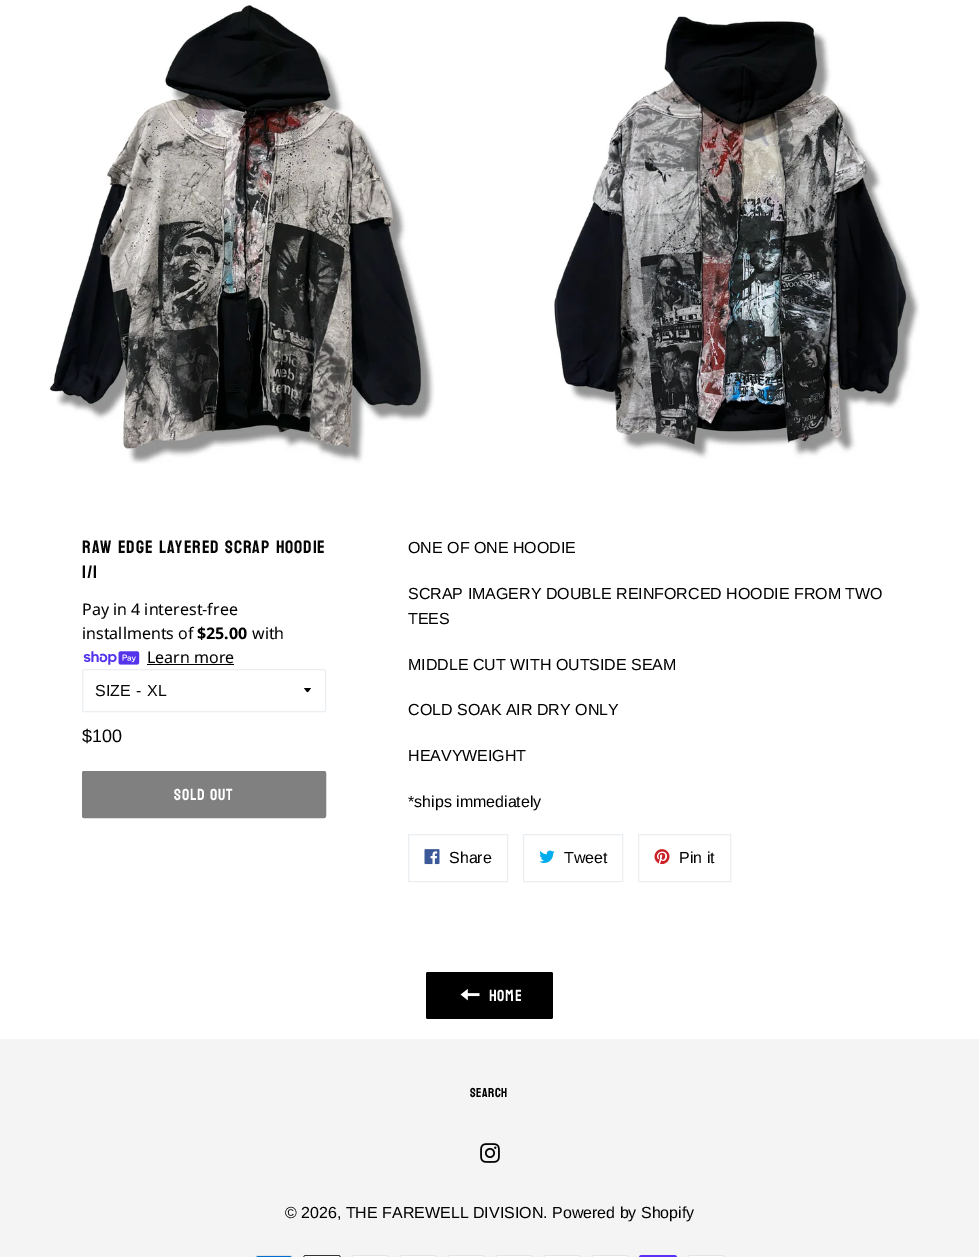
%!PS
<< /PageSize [979 1257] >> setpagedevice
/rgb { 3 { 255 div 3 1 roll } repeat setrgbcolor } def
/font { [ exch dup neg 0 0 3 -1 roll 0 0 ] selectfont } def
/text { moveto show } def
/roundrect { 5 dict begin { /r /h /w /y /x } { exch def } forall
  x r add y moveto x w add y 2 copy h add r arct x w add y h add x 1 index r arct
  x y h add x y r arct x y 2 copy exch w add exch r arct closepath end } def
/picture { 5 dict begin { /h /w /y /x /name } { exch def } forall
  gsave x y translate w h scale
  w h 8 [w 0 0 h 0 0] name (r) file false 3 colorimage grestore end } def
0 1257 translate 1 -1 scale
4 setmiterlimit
255 255 255 rgb
0 0 979 1257 rectfill
(img_01.rgb) 49 5 386 459 picture
(img_02.rgb) 553 16 367 443 picture
(img_03.rgb) 83 651 57 14 picture
0 0 0 rgb
147 664 87 1 rectfill
236 239 241 rgb
82.5 669.5 243 42 1.5 roundrect stroke
0 0 0 rgb
304 688 moveto 4.5 5.5 2.5 5.5 7 0 rcurveto closepath fill
128 128 128 rgb
83 772 242 45 1 roundrect gsave fill grestore
2 setlinewidth
stroke
236 239 241 rgb
1 setlinewidth
408.5 834.5 99 47 rectstroke
(img_04.rgb) 424 849 16 16 picture
523.5 834.5 99 47 rectstroke
(img_05.rgb) 539 850 16 13 picture
638.5 834.5 92 47 rectstroke
(img_06.rgb) 654 849 16 16 picture
0 0 0 rgb
426 972 127 47 2 roundrect fill
(img_07.rgb) 460 988 20 13 picture
244 244 244 rgb
0 1039 979 218 rectfill
(img_08.rgb) 480 1143 20 20 picture
(img_09.rgb) 255 1255 38 2 picture
(img_10.rgb) 303 1255 38 2 picture
(img_11.rgb) 351 1255 38 2 picture
(img_11.rgb) 399 1255 38 2 picture
(img_11.rgb) 447 1255 38 2 picture
(img_11.rgb) 495 1255 38 2 picture
(img_11.rgb) 543 1255 38 2 picture
(img_11.rgb) 591 1255 38 2 picture
(img_12.rgb) 639 1255 38 2 picture
(img_11.rgb) 687 1255 38 2 picture
/Bayon-Regular 18 font
7 7 7 rgb
82 553 moveto 0.9 0 (RAW EDGE LAYERED SCRAP HOODIE) ashow
82 578 moveto 0.9 0 (1/1) ashow
/NotoSans-Regular 16 font
0 0 0 rgb
(Pay in 4 interest-free) 82 615 text
(installments of) 82 639 text
/NotoSans-Bold 16 font
($25.00) 197 639 text
/NotoSans-Regular 16 font
(with) 252 639 text
(Learn more) 147 663 text
/LiberationSans-Regular 16 font
7 7 7 rgb
(SIZE) 95 696 text
(-) 136 696 text
(XL) 147 696 text
/LiberationSans-Regular 18 font
0 0 0 rgb
($100) 82 742 text
/Bayon-Regular 16 font
255 255 255 rgb
174 800 moveto 0.75 0 (SOLD OUT) ashow
/LiberationSans-Regular 16 font
0 0 0 rgb
(ONE OF ONE HOODIE) 408 553 text
(SCRAP IMAGERY DOUBLE REINFORCED HOODIE FROM TWO) 408 599 text
(TEES) 408 624 text
(MIDDLE CUT WITH OUTSIDE SEAM) 408 670 text
(COLD SOAK AIR DRY ONLY) 408 715 text
(HEAVYWEIGHT) 408 761 text
(*ships immediately) 408 807 text
(Share) 449 863 text
(Tweet) 564 863 text
(Pin it) 679 863 text
/Bayon-Regular 16 font
255 255 255 rgb
489 1001 moveto 0.75 0 (HOME) ashow
/Bayon-Regular 13 font
0 0 0 rgb
470 1097 moveto 0.5 0 (SEARCH) ashow
/LiberationSans-Regular 16 font
(© 2026, THE FAREWELL DIVISION. Powered by Shopify) 285 1218 text
showpage
